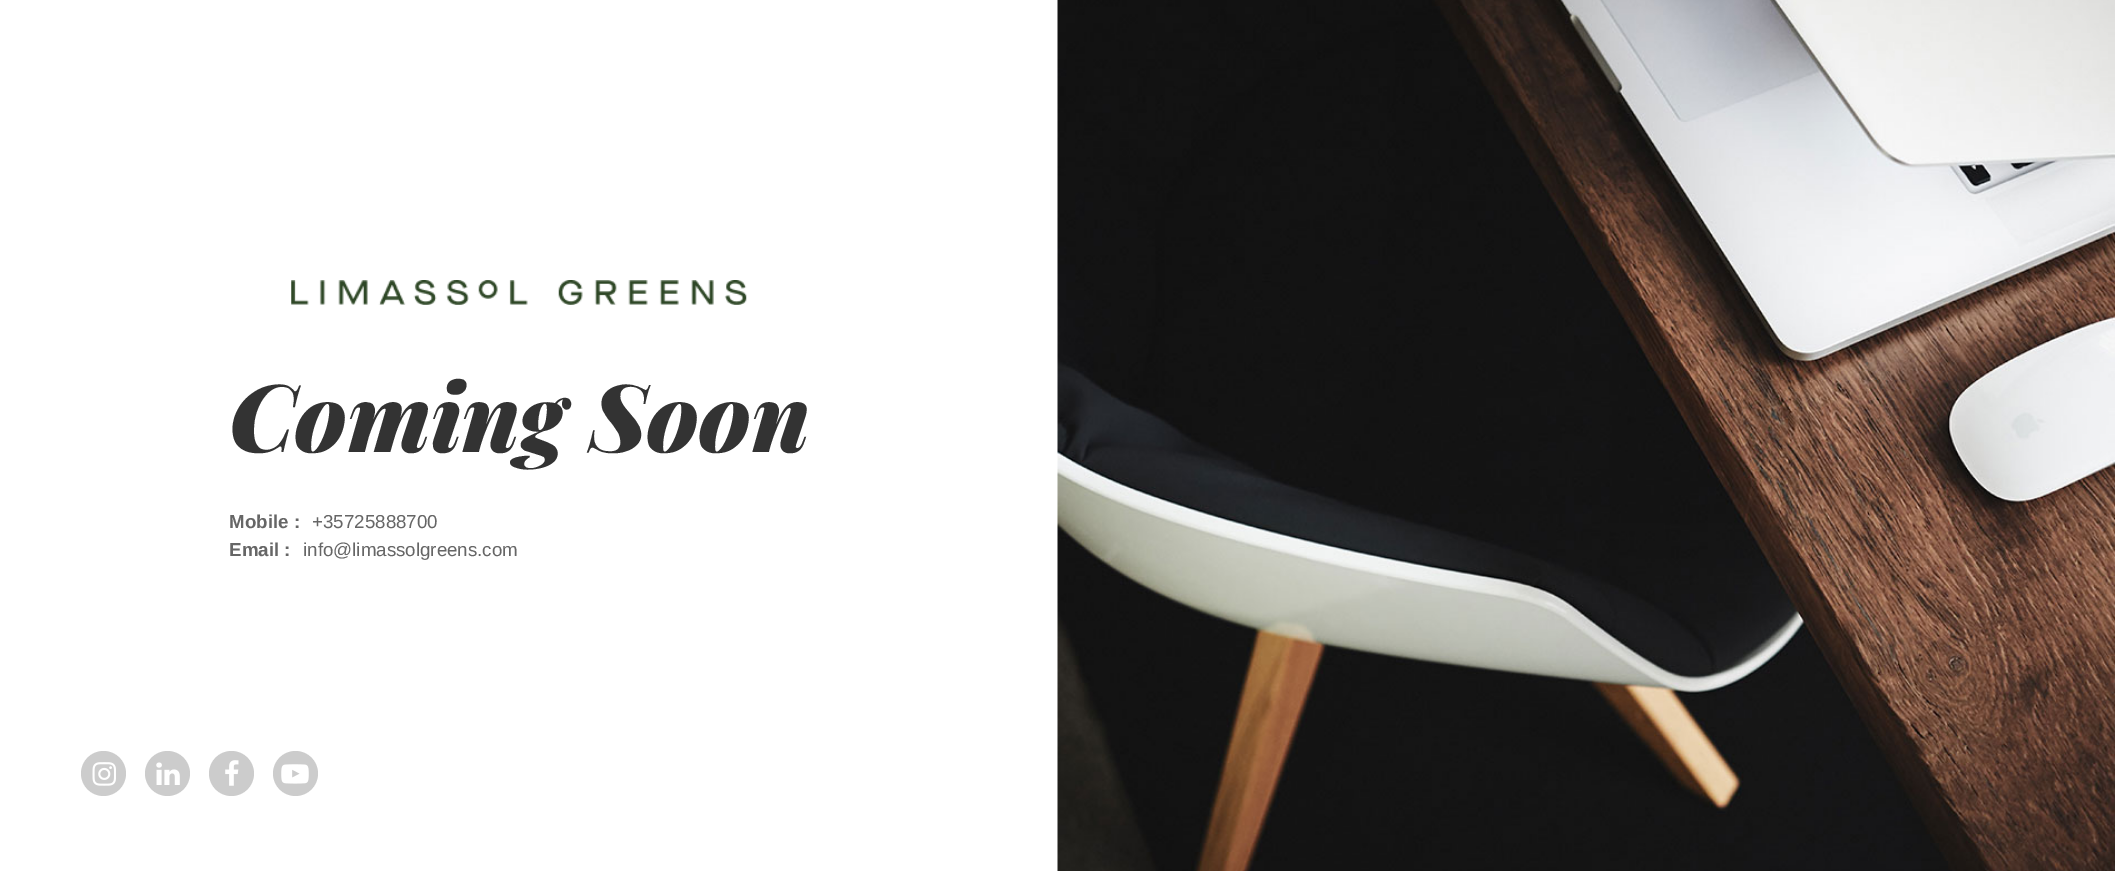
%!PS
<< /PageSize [2115 871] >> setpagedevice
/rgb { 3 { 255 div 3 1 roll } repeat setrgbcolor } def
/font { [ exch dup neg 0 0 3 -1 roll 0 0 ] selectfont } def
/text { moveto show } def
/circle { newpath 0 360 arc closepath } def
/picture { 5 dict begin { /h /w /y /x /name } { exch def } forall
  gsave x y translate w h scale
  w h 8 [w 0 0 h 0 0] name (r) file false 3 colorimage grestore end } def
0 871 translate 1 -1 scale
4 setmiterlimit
255 255 255 rgb
0 0 2115 871 rectfill
(img_01.rgb) 291 280 456 25 picture
204 204 204 rgb
103.5 773.5 22.5 circle fill
(img_02.rgb) 92 762 24 24 picture
167.5 773.5 22.5 circle fill
(img_03.rgb) 156 762 24 23 picture
231.5 773.5 22.5 circle fill
(img_04.rgb) 225 760 14 26 picture
295.5 773.5 22.5 circle fill
(img_05.rgb) 281 764 28 20 picture
(img_06.rgb) 1057 0 1058 871 picture
/PlayfairDisplay-BlackItalic 93.75 font
51 51 51 rgb
(Coming Soon) 229 452 text
/LiberationSans-Bold 18.75 font
102 102 102 rgb
(Mobile :) 229 528 text
/LiberationSans-Regular 18.75 font
(+35725888700) 312 528 text
/LiberationSans-Bold 18.75 font
(Email :) 229 556 text
/LiberationSans-Regular 18.75 font
(info@limassolgreens.com) 303 556 text
showpage
